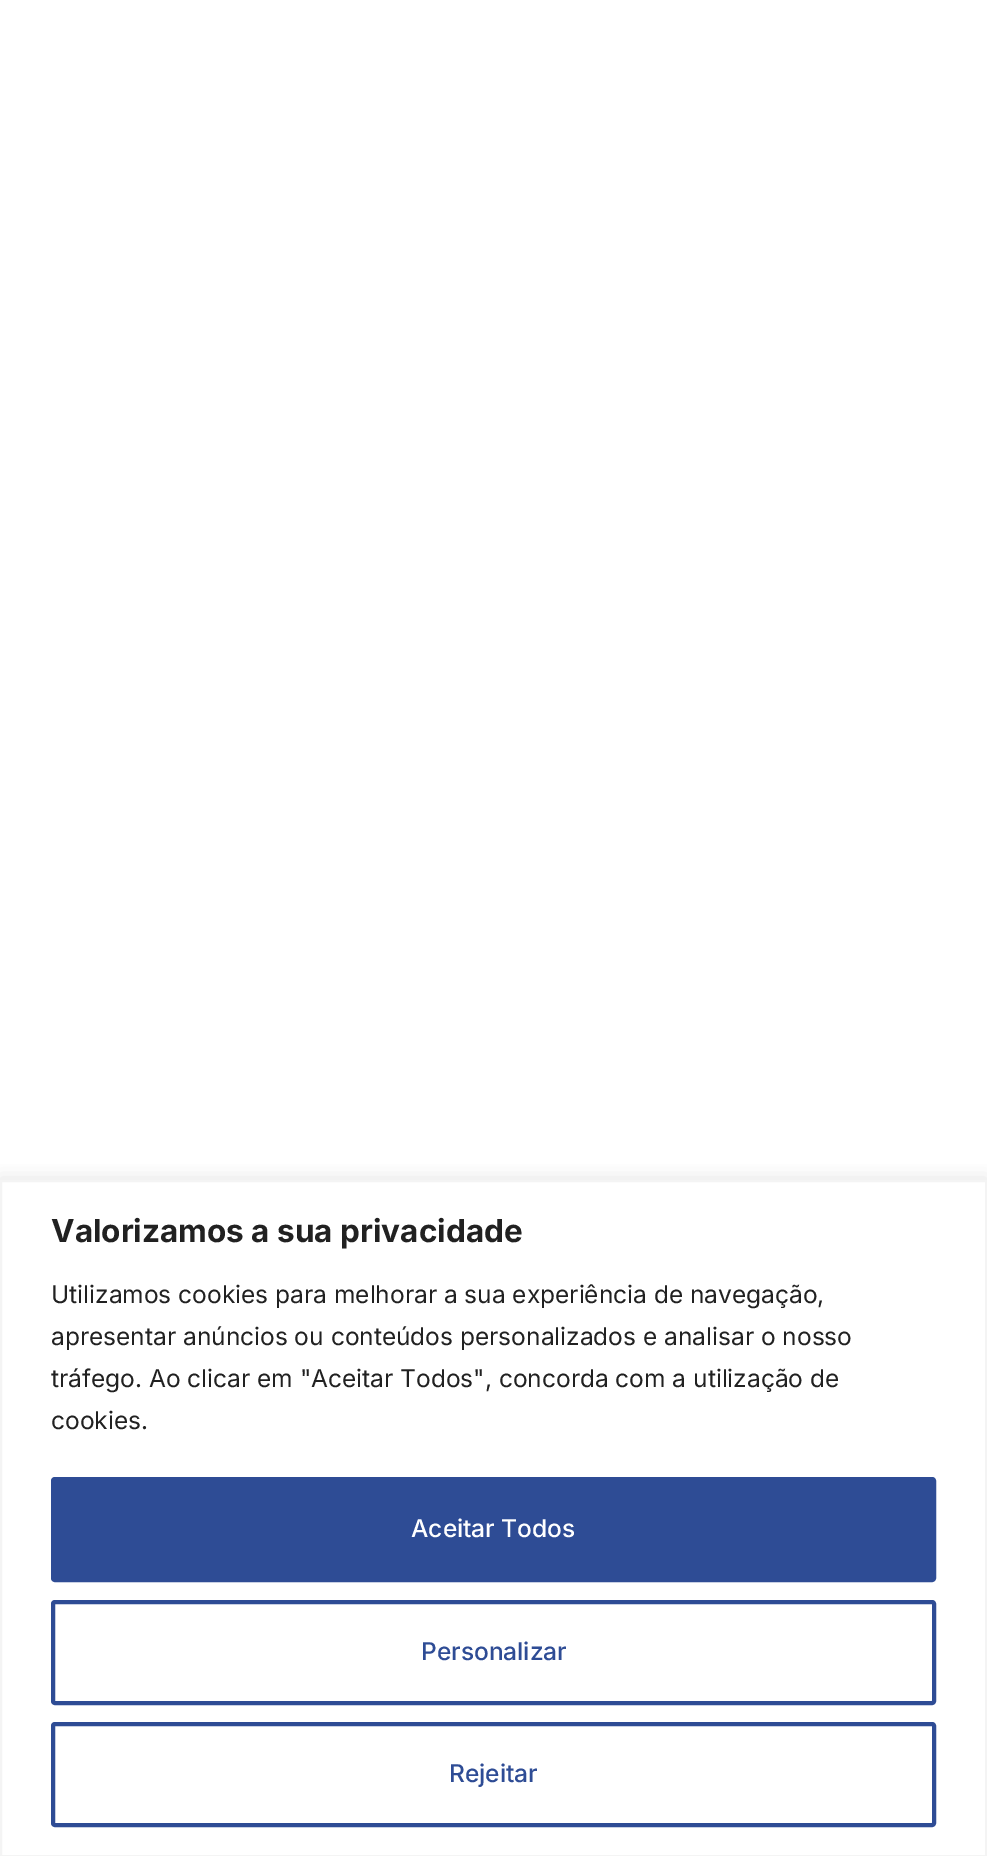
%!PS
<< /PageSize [987 1856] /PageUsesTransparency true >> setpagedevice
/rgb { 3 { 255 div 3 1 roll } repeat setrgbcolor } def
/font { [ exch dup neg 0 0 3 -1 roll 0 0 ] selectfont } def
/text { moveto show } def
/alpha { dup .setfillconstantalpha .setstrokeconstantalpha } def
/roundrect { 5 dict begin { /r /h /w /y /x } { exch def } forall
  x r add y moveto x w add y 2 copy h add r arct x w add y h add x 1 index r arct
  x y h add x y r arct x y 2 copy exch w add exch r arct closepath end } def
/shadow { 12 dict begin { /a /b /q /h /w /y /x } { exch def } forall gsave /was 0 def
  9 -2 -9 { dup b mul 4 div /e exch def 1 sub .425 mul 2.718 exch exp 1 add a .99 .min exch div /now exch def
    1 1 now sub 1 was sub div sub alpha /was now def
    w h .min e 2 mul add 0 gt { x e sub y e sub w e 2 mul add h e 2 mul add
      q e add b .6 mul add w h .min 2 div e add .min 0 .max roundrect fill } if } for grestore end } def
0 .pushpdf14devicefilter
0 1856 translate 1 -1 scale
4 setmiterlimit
255 255 255 rgb
0 0 987 1856 rectfill
gsave
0 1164 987 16 rectclip
172 171 171 rgb
0 1178 987 677 0 9 0.3 shadow
grestore
244 244 244 rgb
2 setlinewidth
1 1181 985 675 rectstroke
46 76 149 rgb
53 1479 881 101 2 roundrect gsave fill grestore
4 setlinewidth
stroke
53 1602 881 101 2 roundrect stroke
53 1724 881 101 2 roundrect stroke
/Inter-Bold 31.5 font
33 33 33 rgb
(Valorizamos a sua privacidade) 51 1242 text
/Inter-Regular 24.5 font
(Utilizamos cookies para melhorar a sua experiência de navegação,) 51 1303 text
(apresentar anúncios ou conteúdos personalizados e analisar o nosso) 51 1345 text
(tráfego. Ao clicar em "Aceitar Todos", concorda com a utilização de) 51 1387 text
(cookies.) 51 1429 text
/Inter-Medium 24.5 font
255 255 255 rgb
(Aceitar Todos) 411 1537 text
46 76 149 rgb
(Personalizar) 421 1660 text
(Rejeitar) 449 1782 text
.poppdf14devicefilter showpage
